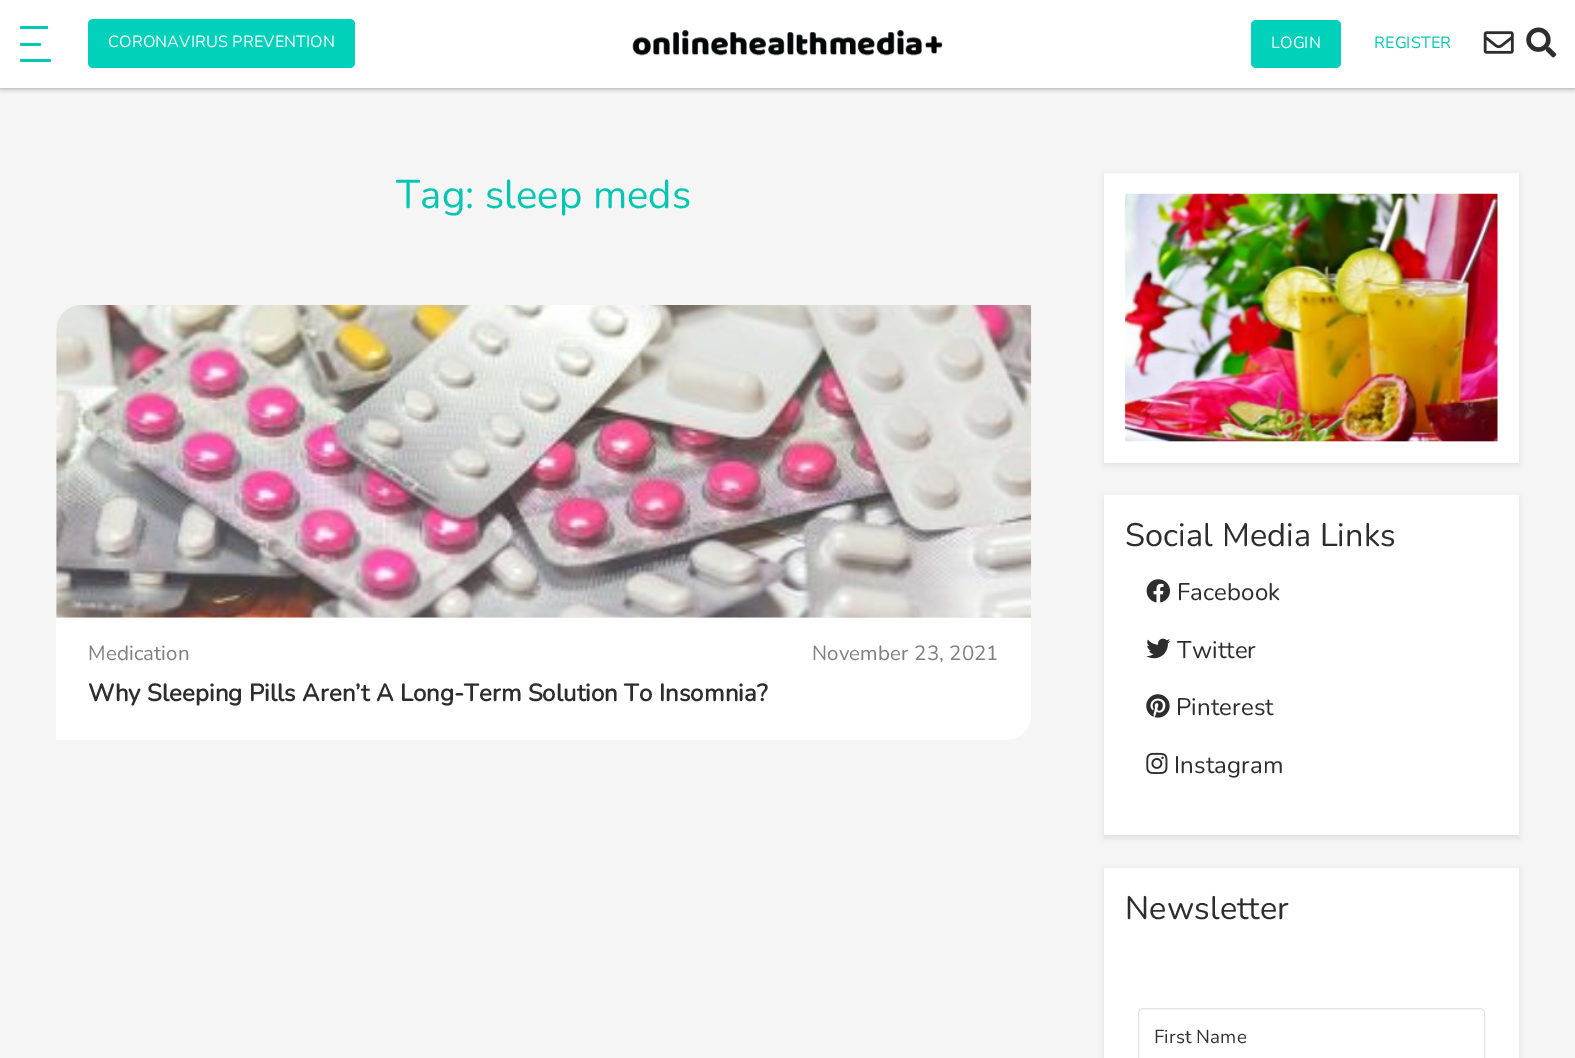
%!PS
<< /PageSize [1575 1058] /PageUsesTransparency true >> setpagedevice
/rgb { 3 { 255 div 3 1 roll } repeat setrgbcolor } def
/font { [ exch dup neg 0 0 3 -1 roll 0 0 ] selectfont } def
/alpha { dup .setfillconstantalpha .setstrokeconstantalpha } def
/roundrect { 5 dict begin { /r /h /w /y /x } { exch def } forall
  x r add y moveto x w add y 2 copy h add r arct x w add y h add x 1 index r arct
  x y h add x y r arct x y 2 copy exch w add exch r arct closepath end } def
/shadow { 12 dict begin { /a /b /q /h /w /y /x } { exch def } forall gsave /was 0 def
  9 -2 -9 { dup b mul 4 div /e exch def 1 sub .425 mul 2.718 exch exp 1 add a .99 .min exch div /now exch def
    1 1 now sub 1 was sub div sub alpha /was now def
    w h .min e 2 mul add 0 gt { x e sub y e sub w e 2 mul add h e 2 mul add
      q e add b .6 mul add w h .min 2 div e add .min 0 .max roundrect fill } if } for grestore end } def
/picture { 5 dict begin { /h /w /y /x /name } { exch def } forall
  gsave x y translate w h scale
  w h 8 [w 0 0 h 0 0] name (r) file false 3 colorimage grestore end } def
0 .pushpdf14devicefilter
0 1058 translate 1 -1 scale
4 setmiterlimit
245 245 245 rgb
0 0 1575 1058 rectfill
0 0 0 rgb
0 1 1575 88 0 2.5 0.3 shadow
255 255 255 rgb
0 0 1575 88 rectfill
1 198 178 rgb
20 26 28 3 1.5 roundrect fill
20 43 21 3 1.5 roundrect fill
20 59 31 3 1.5 roundrect fill
1 208 187 rgb
88 19 267 49 5 roundrect fill
(img_01.rgb) 632 30 311 26 picture
1251 20 90 48 5 roundrect fill
(img_02.rgb) 1483 31 31 23 picture
(img_03.rgb) 1526 27 31 31 picture
(img_04.rgb) 56 305 976 313 picture
255 255 255 rgb
56 618 moveto 975 0 rlineto 0 97 rlineto 0 14 -11 25 -25 25 rcurveto -950 0 rlineto closepath fill
45 45 45 rgb
1104 175 415 290 0 3 0.1 shadow
255 255 255 rgb
1104 173 415 290 rectfill
(img_05.rgb) 1124 193 374 249 picture
45 45 45 rgb
1104 498 415 340 0 3 0.1 shadow
255 255 255 rgb
1104 495 415 340 rectfill
(img_06.rgb) 1146 579 24 24 picture
(img_07.rgb) 1146 638 25 21 picture
(img_08.rgb) 1146 694 24 24 picture
(img_09.rgb) 1146 752 22 22 picture
45 45 45 rgb
1104 870 415 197 0 3 0.1 shadow
255 255 255 rgb
1104 868 415 190 rectfill
227 227 227 rgb
1138.5 1008.5 346 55 4.5 roundrect stroke
/Nunito-ExtraLight 16.25 font
255 255 255 rgb
108 47 moveto 0.12 0 (CORONAVIRUS PREVENTION) ashow
1271 48 moveto 0.12 0 (LOGIN) ashow
1 198 178 rgb
1374 48 moveto 0.12 0 (REGISTER) ashow
/Nunito-ExtraLight 40 font
396 208 moveto 0.12 0 (Tag: sleep meds) ashow
/Nunito-ExtraLight 20.5 font
128 128 128 rgb
88 660 moveto 0.12 0 (Medication) ashow
812 660 moveto 0.12 0 (November 23, 2021) ashow
/Nunito-Bold 24 font
45 45 45 rgb
88 701 moveto 0.12 0 (Why Sleeping Pills Aren’t A Long-Term Solution To Insomnia?) ashow
/Nunito-ExtraLight 32.5 font
1125 546 moveto 0.12 0 (Social Media Links) ashow
/Nunito-ExtraLight 24 font
1177 600 moveto 0.12 0 (Facebook) ashow
1177 658 moveto 0.12 0 (Twitter) ashow
1176 715 moveto 0.12 0 (Pinterest) ashow
1174 773 moveto 0.12 0 (Instagram) ashow
/Nunito-ExtraLight 32.5 font
1125 919 moveto 0.12 0 (Newsletter) ashow
/Nunito-ExtraLight 18.75 font
51 51 51 rgb
1154 1043 moveto 0.12 0 (First Name) ashow
.poppdf14devicefilter showpage
